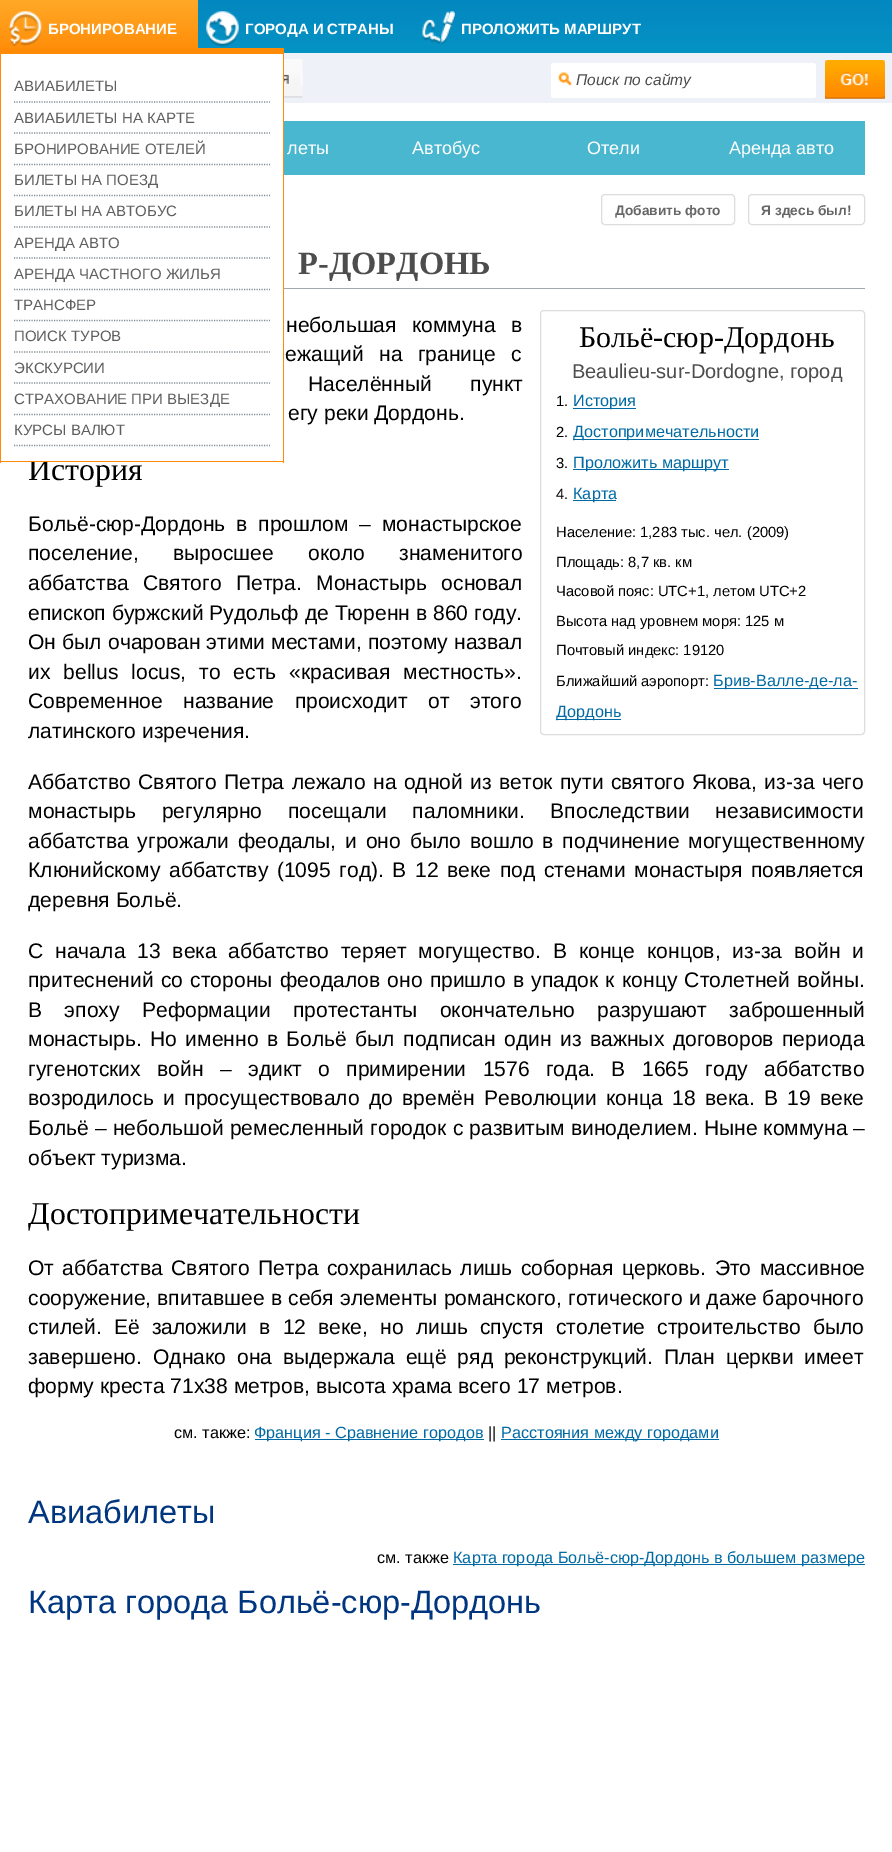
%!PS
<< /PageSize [892 1852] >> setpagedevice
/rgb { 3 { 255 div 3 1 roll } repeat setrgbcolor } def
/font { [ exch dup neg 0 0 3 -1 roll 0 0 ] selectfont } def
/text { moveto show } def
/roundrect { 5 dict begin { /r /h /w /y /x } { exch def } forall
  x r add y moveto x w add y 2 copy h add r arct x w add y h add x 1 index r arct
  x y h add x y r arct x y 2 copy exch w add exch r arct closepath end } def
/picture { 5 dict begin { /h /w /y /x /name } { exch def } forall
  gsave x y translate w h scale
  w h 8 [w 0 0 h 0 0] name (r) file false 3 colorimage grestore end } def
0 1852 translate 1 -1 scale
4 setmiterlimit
238 241 248 rgb
0 0 892 1852 rectfill
gsave 198 0 moveto 694 0 rlineto 0 53 rlineto -694 0 rlineto closepath clip newpath
<< /ShadingType 2 /ColorSpace /DeviceRGB /Coords [0 0 0 53] /Extend [true true] /Function << /FunctionType 2 /Domain [0 1] /C0 [0.012 0.529 0.753] /C1 [0.02 0.576 0.769] /N 1 >> >> shfill grestore
gsave 0 0 moveto 198 0 rlineto 0 48 rlineto -198 0 rlineto closepath clip newpath
<< /ShadingType 2 /ColorSpace /DeviceRGB /Coords [0 0 0 55] /Extend [true true] /Function << /FunctionType 2 /Domain [0 1] /C0 [1 0.663 0.153] /C1 [1 0.541 0.024] /N 1 >> >> shfill grestore
(img_01.rgb) 8 11 34 36 picture
255 138 6 rgb
0 48 284 6 rectfill
255 255 255 rgb
0 103 892 1749 rectfill
255 138 6 rgb
283 48 1 415 rectfill
(img_02.rgb) 206 11 33 36 picture
(img_03.rgb) 422 11 33 33 picture
255 255 255 rgb
551 63 265 35 2.5 roundrect fill
(img_04.rgb) 558 72 14 14 picture
(img_05.rgb) 825 60 60 39 picture
(img_06.rgb) 284 59 19 39 picture
74 183 208 rgb
284 121 581 54 rectfill
221 221 221 rgb
601.5 194.5 133 30 3.5 roundrect stroke
748.5 194.5 116 30 3.5 roundrect stroke
162 169 177 rgb
284 288 581 1 rectfill
221 221 221 rgb
540.5 310.5 324 424 3.5 roundrect stroke
0 106 164 rgb
573 408 63 1 rectfill
573 439 186 1 rectfill
573 469 156 1 rectfill
573 500 43 1 rectfill
714 688 144 1 rectfill
556 719 65 1 rectfill
255 1439 229 1 rectfill
501 1439 218 1 rectfill
453 1564 412 1 rectfill
/LiberationSans-Bold 15 font
255 255 255 rgb
(БРОНИРОВАНИЕ) 48 34 text
(ГОРОДА И СТРАНЫ) 245 34 text
(ПРОЛОЖИТЬ МАРШРУТ) 461 34 text
/LiberationSans-Italic 15.5 font
77 77 77 rgb
(Поиск по сайту) 576 85 text
/LiberationSans-Regular 18 font
255 255 255 rgb
(леты) 287 154 text
(Автобус) 412 154 text
(Отели) 587 154 text
(Аренда авто) 729 154 text
/LiberationSans-Bold 13.75 font
102 102 102 rgb
(Добавить фото) 615 215 text
(Я здесь был!) 761 215 text
/LiberationSerif-Bold 32.5 font
77 77 77 rgb
(Р-ДОРДОНЬ) 298 274 text
/LiberationSerif-Regular 31.75 font
0 0 0 rgb
(История) 28 480 text
255 255 255 rgb
1 54 282 407 rectfill
/LiberationSans-Regular 15 font
95 95 95 rgb
(КУРСЫ ВАЛЮТ) 14 435 text
133 143 151 rgb
1.2 setlinewidth
[1.25 1.25] 0 setdash
14 445.5 moveto 256 0 rlineto stroke
95 95 95 rgb
(СТРАХОВАНИЕ ПРИ ВЫЕЗДЕ) 14 404 text
133 143 151 rgb
14 414.5 moveto 256 0 rlineto stroke
95 95 95 rgb
(ЭКСКУРСИИ) 14 373 text
133 143 151 rgb
14 383 moveto 256 0 rlineto stroke
95 95 95 rgb
(ПОИСК ТУРОВ) 14 341 text
133 143 151 rgb
14 352 moveto 256 0 rlineto stroke
95 95 95 rgb
(ТРАНСФЕР) 14 310 text
133 143 151 rgb
14 320.5 moveto 256 0 rlineto stroke
95 95 95 rgb
(АРЕНДА ЧАСТНОГО ЖИЛЬЯ) 14 279 text
133 143 151 rgb
14 289.5 moveto 256 0 rlineto stroke
95 95 95 rgb
(АРЕНДА АВТО) 14 248 text
133 143 151 rgb
14 258 moveto 256 0 rlineto stroke
95 95 95 rgb
(БИЛЕТЫ НА АВТОБУС) 14 216 text
133 143 151 rgb
14 227 moveto 256 0 rlineto stroke
95 95 95 rgb
(БИЛЕТЫ НА ПОЕЗД) 14 185 text
133 143 151 rgb
14 195.5 moveto 256 0 rlineto stroke
95 95 95 rgb
(БРОНИРОВАНИЕ ОТЕЛЕЙ) 14 154 text
133 143 151 rgb
14 164.5 moveto 256 0 rlineto stroke
95 95 95 rgb
(АВИАБИЛЕТЫ НА КАРТЕ) 14 123 text
133 143 151 rgb
14 133 moveto 256 0 rlineto stroke
95 95 95 rgb
(АВИАБИЛЕТЫ) 14 91 text
133 143 151 rgb
14 102 moveto 256 0 rlineto stroke
255 138 6 rgb
0 461 284 1 rectfill
0 48 1 415 rectfill
/LiberationSans-Regular 21.1 font
0 0 0 rgb
286 332 moveto 9.5 0 32 (небольшая коммуна в) widthshow
285 361 moveto 9.5 0 32 (ежащий на границе с) widthshow
308 391 moveto 33 0 32 (Населённый пункт) widthshow
(егу реки Дордонь.) 288 420 text
/LiberationSerif-Regular 30 font
(Больё-сюр-Дордонь) 579 347 text
/LiberationSans-Regular 20 font
77 77 77 rgb
(Beaulieu-sur-Dordogne, город) 572 378 text
/LiberationSans-Regular 14.75 font
0 0 0 rgb
(1.) 556 406 text
/LiberationSans-Regular 16.25 font
0 106 164 rgb
(История) 573 406 text
/LiberationSans-Regular 14.75 font
0 0 0 rgb
(2.) 556 437 text
/LiberationSans-Regular 16.25 font
0 106 164 rgb
(Достопримечательности) 573 437 text
/LiberationSans-Regular 14.75 font
0 0 0 rgb
(3.) 556 468 text
/LiberationSans-Regular 16.25 font
0 106 164 rgb
(Проложить маршрут) 573 468 text
/LiberationSans-Regular 14.75 font
0 0 0 rgb
(4.) 556 499 text
/LiberationSans-Regular 16.25 font
0 106 164 rgb
(Карта) 573 499 text
/LiberationSans-Regular 14.75 font
0 0 0 rgb
(Население: 1,283 тыс. чел. \(2009\)) 556 537 text
(Площадь: 8,7 кв. км) 556 567 text
(Часовой пояс: UTC+1, летом UTC+2) 556 596 text
(Высота над уровнем моря: 125 м) 556 626 text
(Почтовый индекс: 19120) 556 655 text
(Ближайший аэропорт:) 556 686 text
/LiberationSans-Regular 16.25 font
0 106 164 rgb
(Брив-Валле-де-ла-) 713 686 text
(Дордонь) 556 717 text
/LiberationSans-Regular 21.1 font
0 0 0 rgb
28 531 moveto 5 0 32 (Больё-сюр-Дордонь в прошлом – монастырское) widthshow
28 560 moveto 28.5 0 32 (поселение, выросшее около знаменитого) widthshow
28 590 moveto 8.5 0 32 (аббатства Святого Петра. Монастырь основал) widthshow
(епископ буржский Рудольф де Тюренн в 860 году.) 28 620 text
28 649 moveto 0.25 0 32 (Он был очарован этими местами, поэтому назвал) widthshow
28 679 moveto 7 0 32 (их bellus locus, то есть «красивая местность».) widthshow
28 708 moveto 14.5 0 32 (Современное название происходит от этого) widthshow
(латинского изречения.) 28 738 text
28 789 moveto 1.5 0 32 (Аббатство Святого Петра лежало на одной из веток пути святого Якова, из-за чего) widthshow
28 818 moveto 20 0 32 (монастырь регулярно посещали паломники. Впоследствии независимости) widthshow
28 848 moveto 3 0 32 (аббатства угрожали феодалы, и оно было вошло в подчинение могущественному) widthshow
28 877 moveto 2.75 0 32 (Клюнийскому аббатству \(1095 год\). В 12 веке под стенами монастыря появляется) widthshow
(деревня Больё.) 28 907 text
28 958 moveto 6 0 32 (С начала 13 века аббатство теряет могущество. В конце концов, из-за войн и) widthshow
28 987 moveto 1.4 0 32 (притеснений со стороны феодалов оно пришло в упадок к концу Столетней войны.) widthshow
28 1017 moveto 16.5 0 32 (В эпоху Реформации протестанты окончательно разрушают заброшенный) widthshow
28 1046 moveto 2.5 0 32 (монастырь. Но именно в Больё был подписан один из важных договоров периода) widthshow
28 1076 moveto 10.5 0 32 (гугенотских войн – эдикт о примирении 1576 года. В 1665 году аббатство) widthshow
28 1105 moveto 3.5 0 32 (возродилось и просуществовало до времён Революции конца 18 века. В 19 веке) widthshow
28 1135 moveto 0.25 0 32 (Больё – небольшой ремесленный городок с развитым виноделием. Ныне коммуна –) widthshow
(объект туризма.) 28 1165 text
/LiberationSerif-Regular 31.75 font
(Достопримечательности) 28 1224 text
/LiberationSans-Regular 21.1 font
28 1275 moveto 2.5 0 32 (От аббатства Святого Петра сохранилась лишь соборная церковь. Это массивное) widthshow
28 1305 moveto 0.25 0 32 (сооружение, впитавшее в себя элементы романского, готического и даже барочного) widthshow
28 1334 moveto 6.25 0 32 (стилей. Её заложили в 12 веке, но лишь спустя столетие строительство было) widthshow
28 1364 moveto 5 0 32 (завершено. Однако она выдержала ещё ряд реконструкций. План церкви имеет) widthshow
(форму креста 71х38 метров, высота храма всего 17 метров.) 28 1393 text
/LiberationSans-Regular 16.25 font
(см. также:) 174 1438 text
0 106 164 rgb
(Франция - Сравнение городов) 254 1438 text
0 0 0 rgb
(||) 488 1438 text
0 106 164 rgb
(Расстояния между городами) 501 1438 text
/LiberationSans-Regular 32.5 font
0 53 128 rgb
(Авиабилеты) 28 1523 text
/LiberationSans-Regular 16.25 font
0 0 0 rgb
(см. также) 377 1563 text
0 106 164 rgb
(Карта города Больё-сюр-Дордонь в большем размере) 453 1563 text
/LiberationSans-Regular 32.5 font
0 53 128 rgb
(Карта города Больё-сюр-Дордонь) 28 1613 text
showpage
